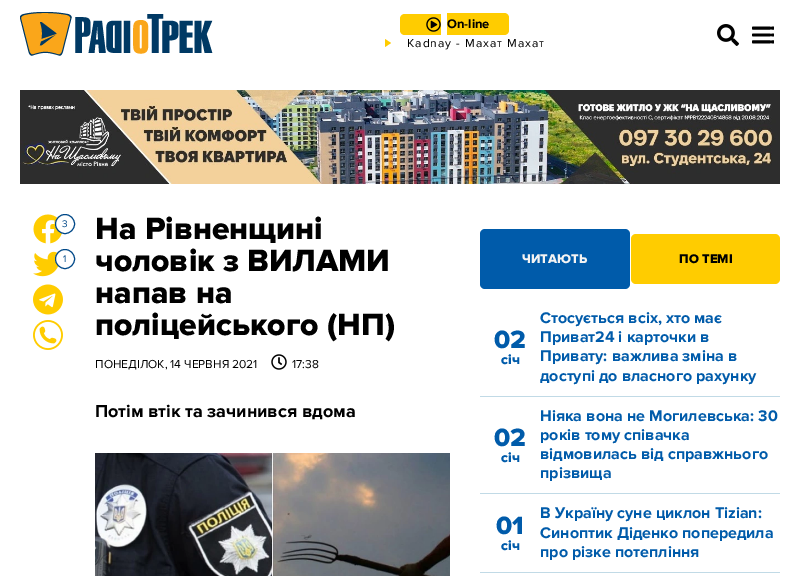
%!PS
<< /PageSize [800 576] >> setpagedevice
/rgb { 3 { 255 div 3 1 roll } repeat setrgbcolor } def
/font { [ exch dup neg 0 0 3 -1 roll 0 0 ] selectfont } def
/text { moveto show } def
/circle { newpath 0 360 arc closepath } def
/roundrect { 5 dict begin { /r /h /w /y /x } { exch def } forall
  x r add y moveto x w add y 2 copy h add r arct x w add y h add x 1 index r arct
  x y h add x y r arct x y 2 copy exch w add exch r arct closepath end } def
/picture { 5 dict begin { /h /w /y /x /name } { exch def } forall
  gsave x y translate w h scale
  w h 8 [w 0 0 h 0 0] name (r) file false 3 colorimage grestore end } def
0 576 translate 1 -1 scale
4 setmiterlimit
255 255 255 rgb
0 0 800 576 rectfill
(img_01.rgb) 20 12 193 44 picture
255 204 0 rgb
405 14 moveto 36 0 rlineto 0 21 rlineto -36 0 rlineto -3 0 -5 -2 -5 -5 rcurveto 0 -11 rlineto 0 -3 2 -5 5 -5 rcurveto closepath fill
447 13 moveto 57 0 rlineto 3 0 5 2 5 5 rcurveto 0 12 rlineto 0 3 -2 5 -5 5 rcurveto -57 0 rlineto closepath fill
(img_02.rgb) 426 17 15 15 picture
385 47 moveto 0 -8 rlineto 6 4 rlineto closepath fill
(img_03.rgb) 717 24 22 22 picture
(img_04.rgb) 752 26 22 18 picture
(img_05.rgb) 20 90 760 94 picture
(img_06.rgb) 33 214 29 30 picture
255 255 255 rgb
65 224 9.5 circle gsave fill grestore
0 72 136 rgb
stroke
(img_07.rgb) 33 251 26 26 picture
255 255 255 rgb
65 259 9.5 circle gsave fill grestore
0 72 136 rgb
stroke
(img_08.rgb) 33 284 30 31 picture
(img_09.rgb) 33 320 30 30 picture
(img_10.rgb) 271 354 16 16 picture
(img_11.rgb) 95 453 355 123 picture
0 91 170 rgb
480 229 150 60 5 roundrect fill
255 204 0 rgb
631 234 149 50 5 roundrect fill
193 218 230 rgb
480 396 300 1 rectfill
480 493 300 1 rectfill
480 572 300 1 rectfill
/ProximaNova-Bold 13 font
0 0 0 rgb
(On-line) 447 28 text
/ProximaNova-Regular 12 font
407 47 moveto 1 0 (Kadnay - Махат Махат) ashow
/ProximaNova-Regular 10 font
0 72 136 rgb
(3) 62 227 text
(1) 63 262 text
/ProximaNova-ExtraBold 32 font
0 0 0 rgb
(На Рівненщині) 95 239 text
(чоловік з ВИЛАМИ) 95 271 text
(напав на) 95 303 text
(поліцейського \(НП\)) 95 335 text
/ProximaNova-Regular 12 font
(ПОНЕДІЛОК, 14 ЧЕРВНЯ 2021) 95 368 text
(17:38) 292 368 text
/ProximaNova-Bold 18 font
(Потім втік та зачинився вдома) 95 417 text
/ProximaNova-ExtraBold 13 font
243 243 243 rgb
(ЧИТАЮТЬ) 522 263 text
0 0 0 rgb
(ПО ТЕМІ) 679 263 text
/ProximaNova-ExtraBold 26 font
0 91 170 rgb
(02) 494 348 text
/ProximaNova-ExtraBold 14 font
(січ) 501 364 text
/ProximaNova-Bold 16 font
(Стосується всіх, хто має) 540 323 text
(Приват24 і карточки в) 540 342 text
(Привату: важлива зміна в) 540 361 text
(доступі до власного рахунку) 540 381 text
/ProximaNova-ExtraBold 26 font
(02) 494 446 text
/ProximaNova-ExtraBold 14 font
(січ) 501 462 text
/ProximaNova-Bold 16 font
(Ніяка вона не Могилевська: 30) 540 421 text
(років тому співачка) 540 440 text
(відмовилась від справжнього) 540 459 text
(прізвища) 540 478 text
/ProximaNova-ExtraBold 26 font
(01) 496 534 text
/ProximaNova-ExtraBold 14 font
(січ) 501 550 text
/ProximaNova-Bold 16 font
(В Україну суне циклон Tizian:) 540 518 text
(Синоптик Діденко попередила) 540 538 text
(про різке потепління) 540 557 text
showpage
